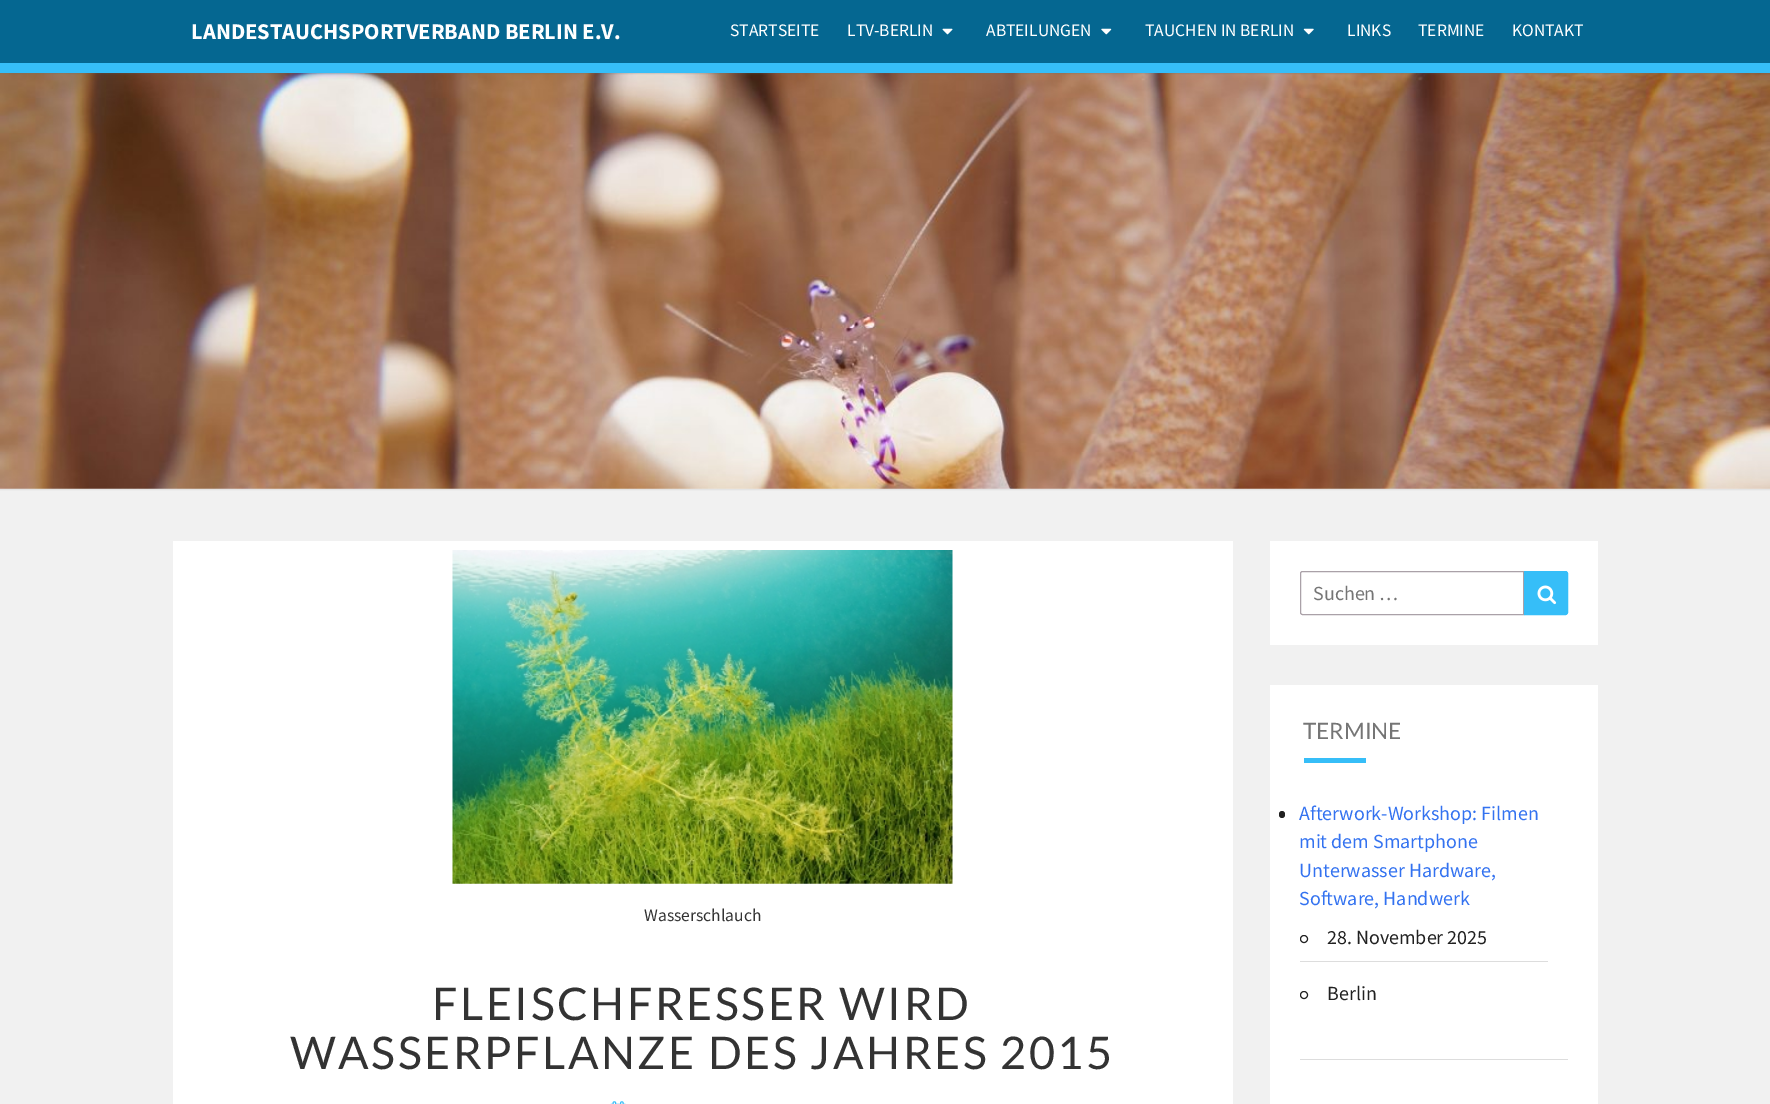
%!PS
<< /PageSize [1770 1104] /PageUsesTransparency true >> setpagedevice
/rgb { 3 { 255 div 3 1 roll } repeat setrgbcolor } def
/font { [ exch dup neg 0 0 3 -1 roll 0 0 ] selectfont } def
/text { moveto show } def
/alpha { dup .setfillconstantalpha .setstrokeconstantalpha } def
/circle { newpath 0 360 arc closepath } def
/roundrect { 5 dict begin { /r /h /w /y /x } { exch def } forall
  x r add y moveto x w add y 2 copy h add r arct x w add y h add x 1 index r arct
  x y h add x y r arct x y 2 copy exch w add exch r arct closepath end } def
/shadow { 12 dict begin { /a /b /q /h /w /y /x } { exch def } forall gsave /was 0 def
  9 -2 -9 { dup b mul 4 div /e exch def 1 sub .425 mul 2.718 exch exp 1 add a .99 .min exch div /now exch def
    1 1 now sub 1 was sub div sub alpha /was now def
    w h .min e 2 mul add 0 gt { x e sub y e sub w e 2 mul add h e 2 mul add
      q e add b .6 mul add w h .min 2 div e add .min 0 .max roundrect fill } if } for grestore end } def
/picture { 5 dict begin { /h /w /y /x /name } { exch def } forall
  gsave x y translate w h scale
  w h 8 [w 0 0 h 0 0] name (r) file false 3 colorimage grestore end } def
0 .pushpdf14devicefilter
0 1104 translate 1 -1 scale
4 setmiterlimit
241 241 241 rgb
0 0 1770 1104 rectfill
182 182 182 rgb
-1 61 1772 429 0 1 0.3 shadow
(img_04.rgb) 0 73 1770 416 picture
100 100 100 rgb
0 1 1770 73 0 0.5 0.2 shadow
5 103 145 rgb
0 0 1770 63 rectfill
54 190 248 rgb
0 63 1770 10 rectfill
(img_01.rgb) 942 28 11 7 picture
(img_02.rgb) 1101 28 11 7 picture
(img_03.rgb) 1303 28 11 7 picture
255 255 255 rgb
173 541 1060 563 rectfill
(img_05.rgb) 452 550 501 334 picture
(img_06.rgb) 610 1101 16 3 picture
1270 541 328 104 rectfill
170 161 168 rgb
1302.5 571.5 moveto 221 0 rlineto 0 43 rlineto -221 0 rlineto -1 0 -2 -1 -2 -2 rcurveto 0 -39 rlineto 0 -1 1 -2 2 -2 rcurveto closepath stroke
54 190 248 rgb
1524.5 571.5 moveto 41 0 rlineto 1 0 2 1 2 2 rcurveto 0 39 rlineto 0 1 -1 2 -2 2 rcurveto -41 0 rlineto closepath gsave fill grestore
stroke
(img_07.rgb) 1537 585 20 20 picture
255 255 255 rgb
1270 685 328 419 rectfill
54 190 248 rgb
1304 758 62 5 rectfill
221 221 221 rgb
1300 1059 268 1 rectfill
33 33 33 rgb
1279 811 6 7 3 roundrect fill
221 221 221 rgb
1300 961 248 1 rectfill
33 33 33 rgb
1304 939 3.5 circle stroke
1304 995 3.5 circle stroke
/SourceSansPro-Bold 22.5 font
255 255 255 rgb
(LANDESTAUCHSPORTVERBAND BERLIN E.V.) 191 39 text
/SourceSansPro-Regular 17.5 font
(STARTSEITE) 730 36 text
(LTV-BERLIN) 847 36 text
(ABTEILUNGEN) 986 36 text
(TAUCHEN IN BERLIN) 1145 36 text
(LINKS) 1347 36 text
(TERMINE) 1418 36 text
(KONTAKT) 1512 36 text
51 51 51 rgb
(Wasserschlauch) 644 921 text
/Lato-Regular 45 font
432 1020 moveto 2.5 0 (FLEISCHFRESSER WIRD) ashow
290 1069 moveto 2.5 0 (WASSERPFLANZE DES JAHRES 2015) ashow
/SourceSansPro-Regular 20 font
117 117 117 rgb
(Suchen …) 1313 600 text
/Lato-Regular 22.5 font
(TERMINE) 1303 739 text
/SourceSansPro-Regular 20 font
51 114 240 rgb
(Afterwork-Workshop: Filmen) 1299 820 text
(mit dem Smartphone) 1299 848 text
(Unterwasser Hardware,) 1299 877 text
(Software, Handwerk) 1299 905 text
33 33 33 rgb
(28. November 2025) 1327 944 text
(Berlin) 1327 1000 text
.poppdf14devicefilter showpage
